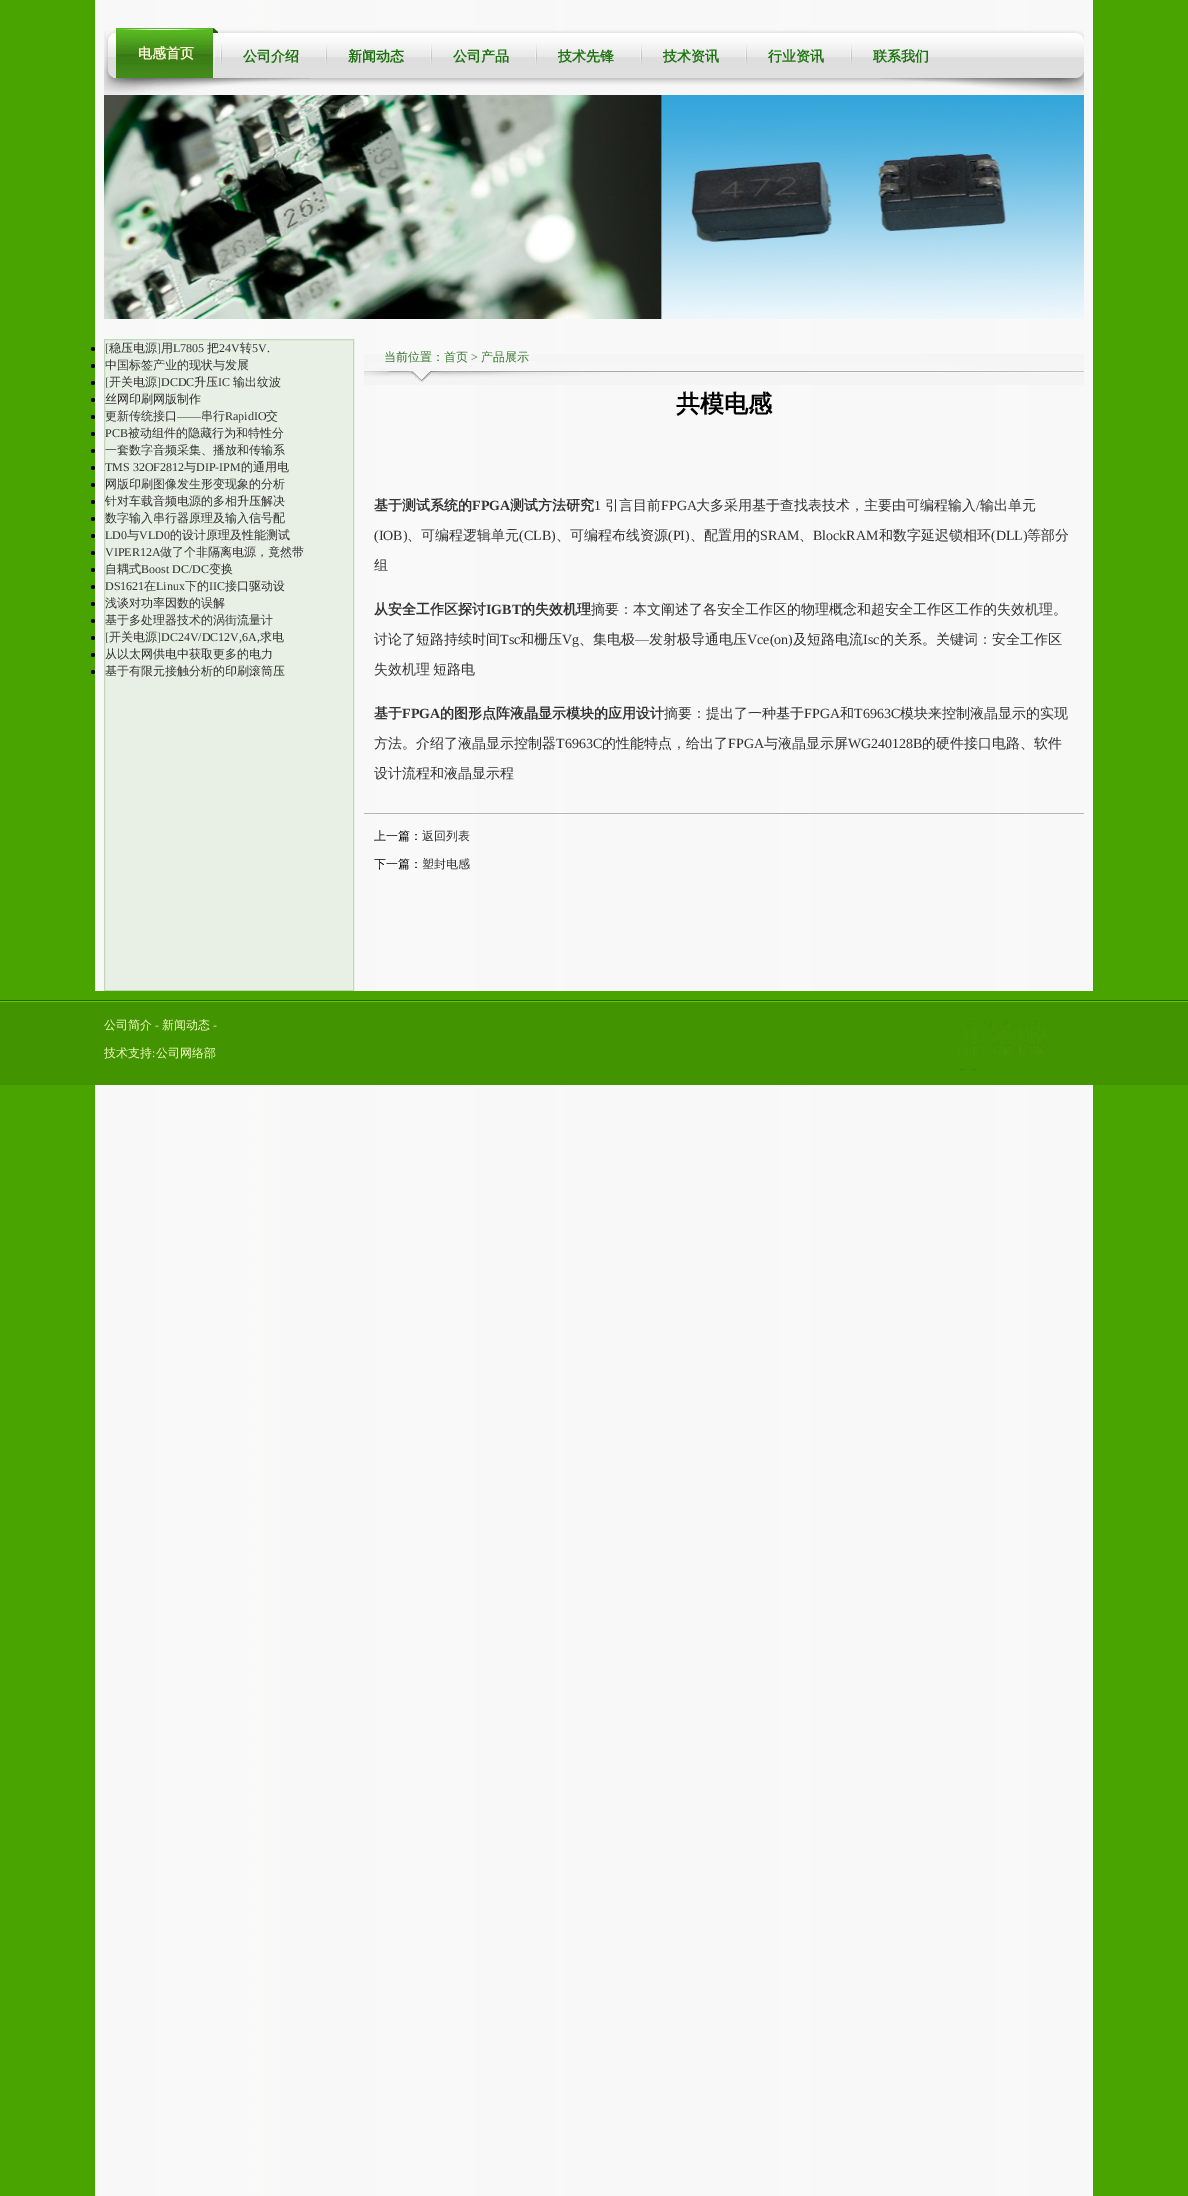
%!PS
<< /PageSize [1188 2196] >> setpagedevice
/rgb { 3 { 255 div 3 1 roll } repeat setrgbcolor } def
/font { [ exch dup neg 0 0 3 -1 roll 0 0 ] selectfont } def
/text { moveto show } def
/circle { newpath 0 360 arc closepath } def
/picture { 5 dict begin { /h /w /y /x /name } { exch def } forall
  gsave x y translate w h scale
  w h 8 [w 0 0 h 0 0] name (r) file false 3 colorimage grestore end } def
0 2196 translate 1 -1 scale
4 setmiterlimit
73 163 1 rgb
0 0 1188 2196 rectfill
(img_01.rgb) 95 0 998 2196 picture
(img_02.rgb) 104 30 980 65 picture
(img_03.rgb) 113 28 105 50 picture
(img_04.rgb) 220 44 2 21 picture
(img_04.rgb) 325 44 2 21 picture
(img_04.rgb) 430 44 2 21 picture
(img_04.rgb) 535 44 2 21 picture
(img_04.rgb) 640 44 2 21 picture
(img_04.rgb) 745 44 2 21 picture
(img_04.rgb) 850 44 2 21 picture
(img_05.rgb) 104 95 980 224 picture
232 240 229 rgb
104.5 339.5 moveto 249 0 rlineto 0 651 rlineto -249 0 rlineto closepath gsave fill grestore
192 215 187 rgb
stroke
0 0 0 rgb
93 349 2 circle fill
93 366 2 circle fill
93 383 2 circle fill
93 400 2 circle fill
93 417 2 circle fill
93 434 2 circle fill
93 451 2 circle fill
93 468 2 circle fill
93 485 2 circle fill
93 502 2 circle fill
93 519 2 circle fill
93 536 2 circle fill
93 553 2 circle fill
93 570 2 circle fill
93 587 2 circle fill
93 604 2 circle fill
93 621 2 circle fill
93 638 2 circle fill
93 655 2 circle fill
93 672 2 circle fill
(img_06.rgb) 364 354 720 31 picture
182 182 182 rgb
364 813 720 1 rectfill
(img_07.rgb) 0 991 1188 94 picture
(img_08.rgb) 958 1021 93 49 picture
/WenQuanYiZenHei-Bold 14 font
254 246 212 rgb
(电感首页) 138 58 text
29 115 15 rgb
(公司介绍) 243 61 text
(新闻动态) 348 61 text
(公司产品) 453 61 text
(技术先锋) 558 61 text
(技术资讯) 663 61 text
(行业资讯) 768 61 text
(联系我们) 873 61 text
/LiberationSerif-Regular 12 font
51 51 51 rgb
([) 105 352 text
/WenQuanYiZenHei-Medium 12 font
(稳压电源) 109 352 text
/LiberationSerif-Regular 12 font
(]) 157 352 text
/WenQuanYiZenHei-Medium 12 font
(用) 161 352 text
/LiberationSerif-Regular 12 font
(L7805) 173 352 text
/WenQuanYiZenHei-Medium 12 font
(把) 207 352 text
/LiberationSerif-Regular 12 font
(24V) 219 352 text
/WenQuanYiZenHei-Medium 12 font
(转) 240 352 text
/LiberationSerif-Regular 12 font
(5V.) 252 352 text
/WenQuanYiZenHei-Medium 12 font
(中国标签产业的现状与发展) 105 369 text
/LiberationSerif-Regular 12 font
([) 105 386 text
/WenQuanYiZenHei-Medium 12 font
(开关电源) 109 386 text
/LiberationSerif-Regular 12 font
(]DCDC) 157 386 text
/WenQuanYiZenHei-Medium 12 font
(升压) 194 386 text
/LiberationSerif-Regular 12 font
(IC) 218 386 text
/WenQuanYiZenHei-Medium 12 font
(输出纹波) 233 386 text
(丝网印刷网版制作) 105 403 text
(更新传统接口) 105 420 text
/LiberationSerif-Regular 12 font
(——) 177 420 text
/WenQuanYiZenHei-Medium 12 font
(串行) 201 420 text
/LiberationSerif-Regular 12 font
(RapidIO) 225 420 text
/WenQuanYiZenHei-Medium 12 font
(交) 266 420 text
/LiberationSerif-Regular 12 font
(PCB) 105 437 text
/WenQuanYiZenHei-Medium 12 font
(被动组件的隐藏行为和特性分) 128 437 text
(一套数字音频采集、播放和传输系) 105 454 text
/LiberationSerif-Regular 12 font
(TMS 32OF2812) 105 471 text
/WenQuanYiZenHei-Medium 12 font
(与) 184 471 text
/LiberationSerif-Regular 12 font
(DIP-IPM) 196 471 text
/WenQuanYiZenHei-Medium 12 font
(的通用电) 241 471 text
(网版印刷图像发生形变现象的分析) 105 488 text
(针对车载音频电源的多相升压解决) 105 505 text
(数字输入串行器原理及输入信号配) 105 522 text
/LiberationSerif-Regular 12 font
(LD0) 105 539 text
/WenQuanYiZenHei-Medium 12 font
(与) 127 539 text
/LiberationSerif-Regular 12 font
(VLD0) 139 539 text
/WenQuanYiZenHei-Medium 12 font
(的设计原理及性能测试) 170 539 text
/LiberationSerif-Regular 12 font
(VIPER12A) 105 556 text
/WenQuanYiZenHei-Medium 12 font
(做了个非隔离电源，竟然带) 160 556 text
(自耦式) 105 573 text
/LiberationSerif-Regular 12 font
(Boost DC/DC) 141 573 text
/WenQuanYiZenHei-Medium 12 font
(变换) 209 573 text
/LiberationSerif-Regular 12 font
(DS1621) 105 590 text
/WenQuanYiZenHei-Medium 12 font
(在) 144 590 text
/LiberationSerif-Regular 12 font
(Linux) 156 590 text
/WenQuanYiZenHei-Medium 12 font
(下的) 185 590 text
/LiberationSerif-Regular 12 font
(IIC) 209 590 text
/WenQuanYiZenHei-Medium 12 font
(接口驱动设) 225 590 text
(浅谈对功率因数的误解) 105 607 text
(基于多处理器技术的涡街流量计) 105 624 text
/LiberationSerif-Regular 12 font
([) 105 641 text
/WenQuanYiZenHei-Medium 12 font
(开关电源) 109 641 text
/LiberationSerif-Regular 12 font
(]DC24V/DC12V,6A,) 157 641 text
/WenQuanYiZenHei-Medium 12 font
(求电) 260 641 text
(从以太网供电中获取更多的电力) 105 658 text
(基于有限元接触分析的印刷滚筒压) 105 675 text
55 124 46 rgb
(当前位置：首页) 384 361 text
/LiberationSerif-Regular 12 font
(>) 471 361 text
/WenQuanYiZenHei-Medium 12 font
(产品展示) 481 361 text
/WenQuanYiZenHei-Bold 24 font
0 0 0 rgb
(共模电感) 676 412 text
/WenQuanYiZenHei-Bold 14 font
51 51 51 rgb
(基于测试系统的) 374 510 text
/LiberationSerif-Bold 14 font
(FPGA) 472 510 text
/WenQuanYiZenHei-Bold 14 font
(测试方法研究) 510 510 text
/LiberationSerif-Regular 14 font
(1) 594 510 text
/WenQuanYiZenHei-Medium 14 font
(引言目前) 605 510 text
/LiberationSerif-Regular 14 font
(FPGA) 661 510 text
/WenQuanYiZenHei-Medium 14 font
(大多采用基于查找表技术，主要由可编程输入) 696 510 text
/LiberationSerif-Regular 14 font
(/) 976 510 text
/WenQuanYiZenHei-Medium 14 font
(输出单元) 980 510 text
/LiberationSerif-Regular 14 font
(\(IOB\)) 374 540 text
/WenQuanYiZenHei-Medium 14 font
(、可编程逻辑单元) 407 540 text
/LiberationSerif-Regular 14 font
(\(CLB\)) 519 540 text
/WenQuanYiZenHei-Medium 14 font
(、可编程布线资源) 556 540 text
/LiberationSerif-Regular 14 font
(\(PI\)) 668 540 text
/WenQuanYiZenHei-Medium 14 font
(、配置用的) 690 540 text
/LiberationSerif-Regular 14 font
(SRAM) 760 540 text
/WenQuanYiZenHei-Medium 14 font
(、) 799 540 text
/LiberationSerif-Regular 14 font
(BlockRAM) 813 540 text
/WenQuanYiZenHei-Medium 14 font
(和数字延迟锁相环) 879 540 text
/LiberationSerif-Regular 14 font
(\(DLL\)) 991 540 text
/WenQuanYiZenHei-Medium 14 font
(等部分) 1027 540 text
(组) 374 570 text
/WenQuanYiZenHei-Bold 14 font
(从安全工作区探讨) 374 614 text
/LiberationSerif-Bold 14 font
(IGBT) 486 614 text
/WenQuanYiZenHei-Bold 14 font
(的失效机理) 521 614 text
/WenQuanYiZenHei-Medium 14 font
(摘要：本文阐述了各安全工作区的物理概念和超安全工作区工作的失效机理。) 591 614 text
(讨论了短路持续时间) 374 644 text
/LiberationSerif-Regular 14 font
(Tsc) 500 644 text
/WenQuanYiZenHei-Medium 14 font
(和栅压) 520 644 text
/LiberationSerif-Regular 14 font
(Vg) 562 644 text
/WenQuanYiZenHei-Medium 14 font
(、集电极) 579 644 text
/LiberationSerif-Regular 14 font
(—) 635 644 text
/WenQuanYiZenHei-Medium 14 font
(发射极导通电压) 649 644 text
/LiberationSerif-Regular 14 font
(Vce\(on\)) 747 644 text
/WenQuanYiZenHei-Medium 14 font
(及短路电流) 793 644 text
/LiberationSerif-Regular 14 font
(Isc) 863 644 text
/WenQuanYiZenHei-Medium 14 font
(的关系。关键词：安全工作区) 880 644 text
374 674 moveto -1 0 32 (失效机理 短路电) widthshow
/WenQuanYiZenHei-Bold 14 font
(基于) 374 718 text
/LiberationSerif-Bold 14 font
(FPGA) 402 718 text
/WenQuanYiZenHei-Bold 14 font
(的图形点阵液晶显示模块的应用设计) 440 718 text
/WenQuanYiZenHei-Medium 14 font
(摘要：提出了一种基于) 664 718 text
/LiberationSerif-Regular 14 font
(FPGA) 804 718 text
/WenQuanYiZenHei-Medium 14 font
(和) 840 718 text
/LiberationSerif-Regular 14 font
(T6963C) 854 718 text
/WenQuanYiZenHei-Medium 14 font
(模块来控制液晶显示的实现) 900 718 text
(方法。介绍了液晶显示控制器) 374 748 text
/LiberationSerif-Regular 14 font
(T6963C) 556 748 text
/WenQuanYiZenHei-Medium 14 font
(的性能特点，给出了) 602 748 text
/LiberationSerif-Regular 14 font
(FPGA) 728 748 text
/WenQuanYiZenHei-Medium 14 font
(与液晶显示屏) 764 748 text
/LiberationSerif-Regular 14 font
(WG240128B) 848 748 text
/WenQuanYiZenHei-Medium 14 font
(的硬件接口电路、软件) 922 748 text
(设计流程和液晶显示程) 374 778 text
/WenQuanYiZenHei-Medium 12 font
0 0 0 rgb
(上一篇：) 374 840 text
51 51 51 rgb
(返回列表) 422 840 text
0 0 0 rgb
(下一篇：) 374 868 text
51 51 51 rgb
(塑封电感) 422 868 text
249 252 198 rgb
(公司简介) 104 1029 text
/LiberationSerif-Regular 12 font
(-) 155 1029 text
/WenQuanYiZenHei-Medium 12 font
(新闻动态) 162 1029 text
/LiberationSerif-Regular 12 font
(-) 213 1029 text
/WenQuanYiZenHei-Medium 12 font
(技术支持 公司网络部) 104 1057 text
/LiberationSerif-Regular 12 font
(:) 152 1057 text
showpage
